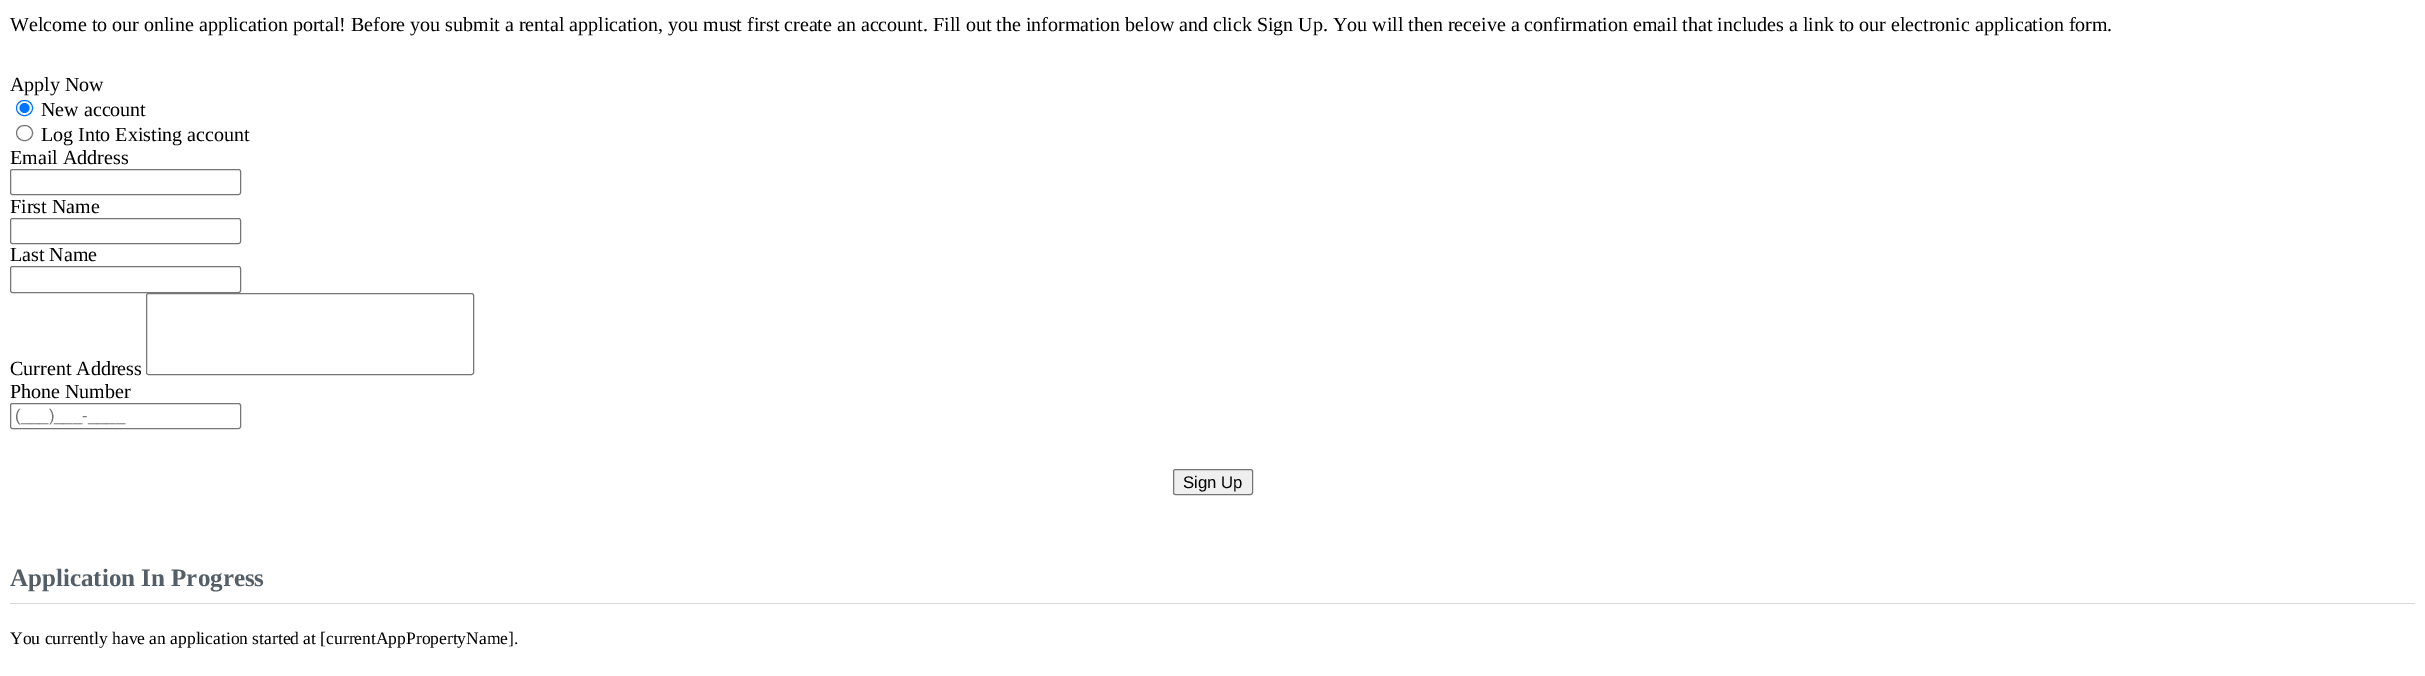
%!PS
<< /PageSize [2425 676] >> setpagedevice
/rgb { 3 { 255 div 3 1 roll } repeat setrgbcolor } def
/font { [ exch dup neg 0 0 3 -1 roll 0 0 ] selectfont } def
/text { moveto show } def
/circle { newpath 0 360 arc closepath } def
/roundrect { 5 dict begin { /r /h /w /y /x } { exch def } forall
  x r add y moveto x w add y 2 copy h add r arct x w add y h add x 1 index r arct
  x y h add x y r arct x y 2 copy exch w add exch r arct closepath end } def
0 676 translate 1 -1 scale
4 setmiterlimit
255 255 255 rgb
0 0 2425 676 rectfill
0 117 255 rgb
16.5 100.5 16 15 7.5 roundrect stroke
24.5 108 5 circle fill
118 118 118 rgb
16.5 125.5 16 15 7.5 roundrect stroke
10.5 169.5 230 25 2 roundrect stroke
10.5 218.5 230 25 2 roundrect stroke
10.5 266.5 230 26 2 roundrect stroke
146.5 293.5 327 81 2 roundrect stroke
10.5 403.5 230 25 2 roundrect stroke
239 239 239 rgb
1173.5 469.5 79 25 2 roundrect gsave fill grestore
118 118 118 rgb
stroke
217 217 217 rgb
10 603 2405 1 rectfill
/LiberationSerif-Regular 20 font
0 0 0 rgb
(Welcome to our online application portal! Before you submit a rental application, you must first create an account. Fill out the information below and click Sign Up. You will then receive a confirmation email that includes a link to our electronic application form.) 10 31 text
(Apply Now) 10 91 text
(New account) 41 116 text
(Log Into Existing account) 41 141 text
(Email Address) 10 164 text
(First Name) 10 213 text
(Last Name) 10 261 text
(Current Address) 10 375 text
(Phone Number) 10 398 text
/LiberationSans-Regular 16.75 font
117 117 117 rgb
(\(___\)___-____) 15 421 text
0 0 0 rgb
(Sign Up) 1183 488 text
/LiberationSerif-Bold 25 font
84 94 102 rgb
(Application In Progress) 10 586 text
/LiberationSerif-Regular 17.5 font
0 0 0 rgb
(You currently have an application started at [currentAppPropertyName].) 10 644 text
showpage
